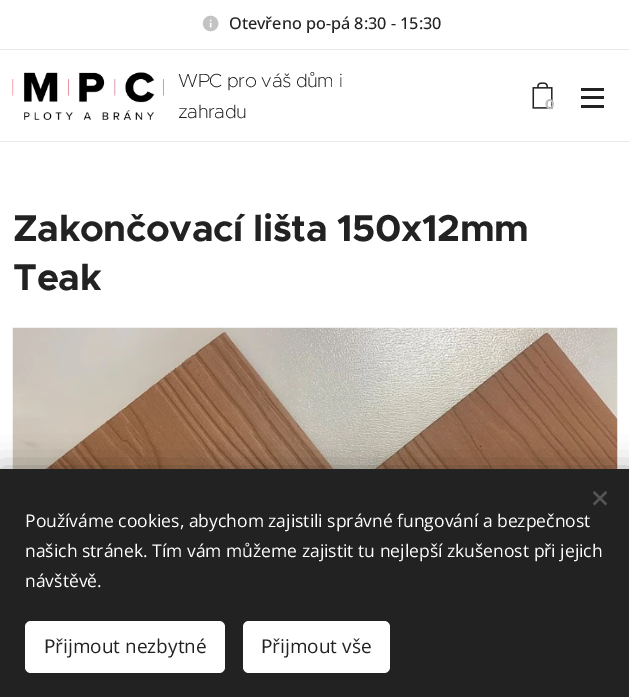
%!PS
<< /PageSize [629 697] /PageUsesTransparency true >> setpagedevice
/rgb { 3 { 255 div 3 1 roll } repeat setrgbcolor } def
/font { [ exch dup neg 0 0 3 -1 roll 0 0 ] selectfont } def
/text { moveto show } def
/alpha { dup .setfillconstantalpha .setstrokeconstantalpha } def
/roundrect { 5 dict begin { /r /h /w /y /x } { exch def } forall
  x r add y moveto x w add y 2 copy h add r arct x w add y h add x 1 index r arct
  x y h add x y r arct x y 2 copy exch w add exch r arct closepath end } def
/shadow { 12 dict begin { /a /b /q /h /w /y /x } { exch def } forall gsave /was 0 def
  9 -2 -9 { dup b mul 4 div /e exch def 1 sub .425 mul 2.718 exch exp 1 add a .99 .min exch div /now exch def
    1 1 now sub 1 was sub div sub alpha /was now def
    w h .min e 2 mul add 0 gt { x e sub y e sub w e 2 mul add h e 2 mul add
      q e add b .6 mul add w h .min 2 div e add .min 0 .max roundrect fill } if } for grestore end } def
/picture { 5 dict begin { /h /w /y /x /name } { exch def } forall
  gsave x y translate w h scale
  w h 8 [w 0 0 h 0 0] name (r) file false 3 colorimage grestore end } def
0 .pushpdf14devicefilter
0 697 translate 1 -1 scale
4 setmiterlimit
255 255 255 rgb
0 0 629 697 rectfill
(img_01.rgb) 202 15 17 17 picture
232 232 232 rgb
0 49 629 1 rectfill
(img_02.rgb) 12 72 152 48 picture
(img_03.rgb) 532 82 21 27 picture
34 34 34 rgb
581 96 23 3 rectfill
581 88 23 3 rectfill
581 105 23 3 rectfill
232 232 232 rgb
0 141 629 1 rectfill
(img_04.rgb) 12 327 606 142 picture
0 0 0 rgb
0 469 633 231 0 15.5 0.33 shadow
34 34 34 rgb
0 469 629 228 rectfill
85 85 85 rgb
593 503.5 moveto 12.5 -12.5 rlineto 1.5 2 rlineto -12.5 12.5 rlineto closepath fill
594.5 491 moveto 12.5 12.5 rlineto -1.5 2 rlineto -12.5 -12.5 rlineto closepath fill
255 255 255 rgb
25 621 200 52 6 roundrect fill
243 621 147 52 6 roundrect fill
/OpenSans-Medium 16.25 font
34 34 34 rgb
(Otevřeno po-pá 8:30 - 15:30) 229 29 text
/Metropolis-ExtraLight 19 font
178 87 moveto -0.4 0 (WPC pro váš dům i) ashow
178 118 moveto -0.4 0 (zahradu) ashow
/Montserrat-Bold 14 font
189 189 189 rgb
(0) 545 109 text
/Metropolis-Bold 37.5 font
34 34 34 rgb
13 241 moveto -0.4 0 (Zakončovací lišta 150x12mm) ashow
13 290 moveto -0.4 0 (Teak) ashow
/OpenSans-Regular 17.5 font
255 255 255 rgb
(Používáme cookies, abychom zajistili správné fungování a bezpečnost) 25 527 text
(našich stránek. Tím vám můžeme zajistit tu nejlepší zkušenost při jejich) 25 557 text
(návštěvě.) 25 587 text
/OpenSans-Regular 19 font
34 34 34 rgb
(Přijmout nezbytné) 44 653 text
(Přijmout vše) 261 653 text
.poppdf14devicefilter showpage
